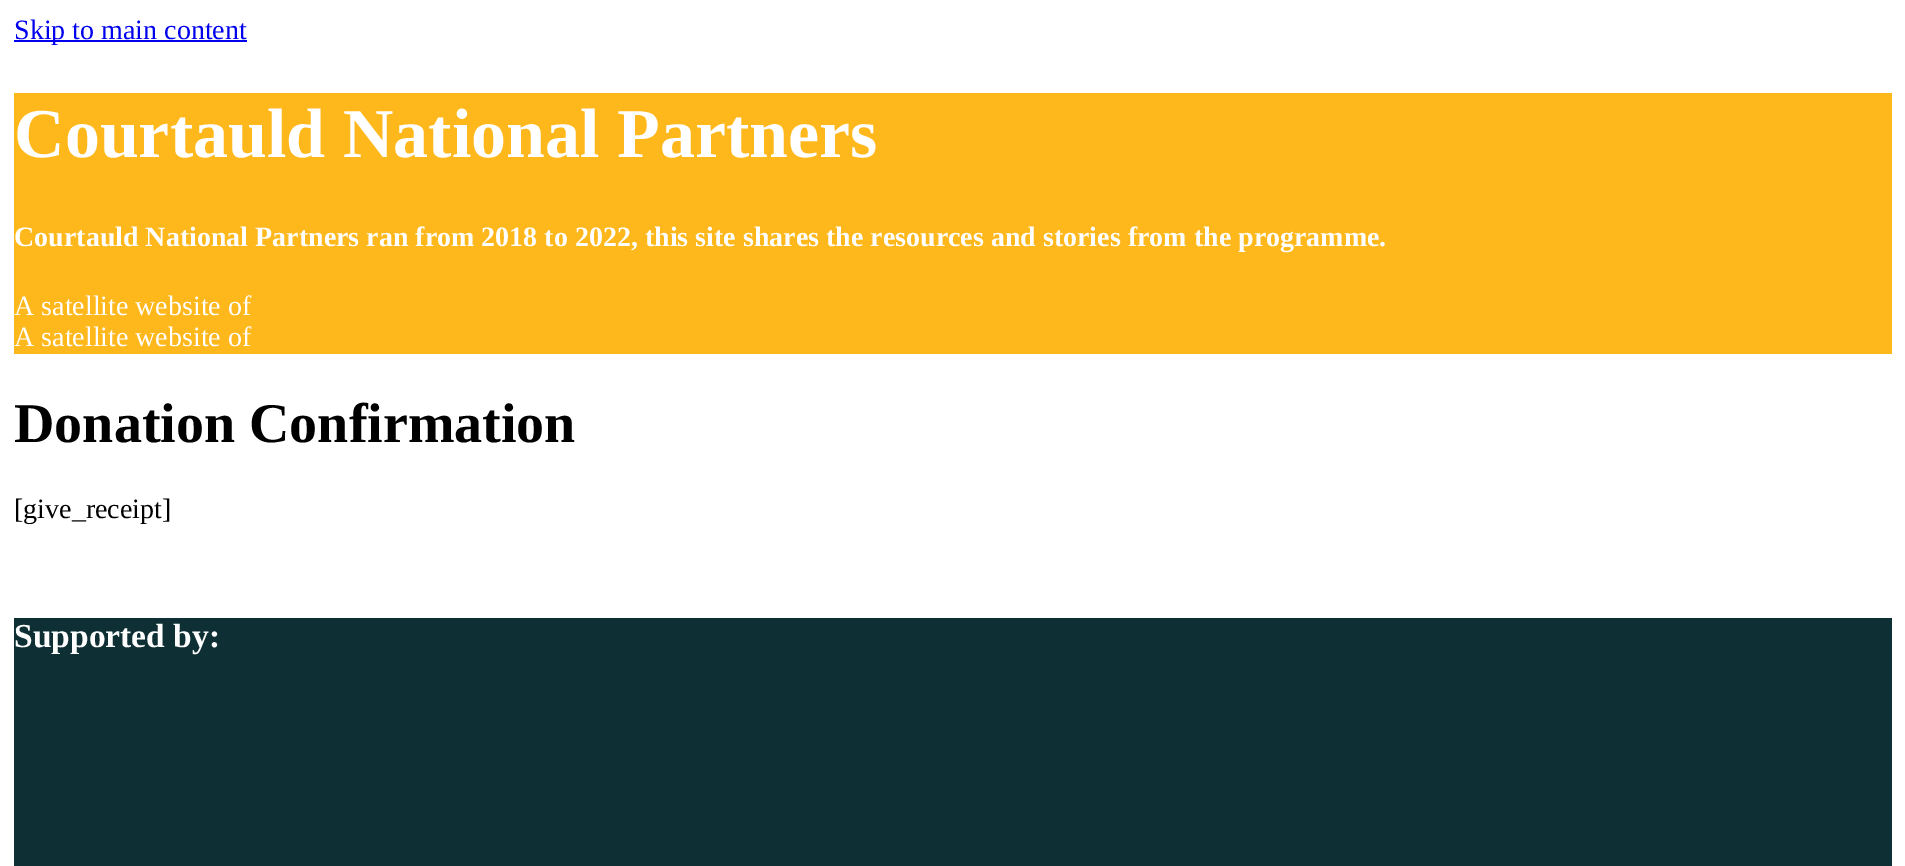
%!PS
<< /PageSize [1905 866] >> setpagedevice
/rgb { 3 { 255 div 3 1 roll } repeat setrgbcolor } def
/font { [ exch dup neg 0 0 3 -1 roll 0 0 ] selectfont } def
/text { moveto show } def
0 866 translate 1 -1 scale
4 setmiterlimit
255 255 255 rgb
0 0 1905 866 rectfill
0 0 238 rgb
14 40 233 2 rectfill
255 184 28 rgb
14 93 1878 261 rectfill
14 48 52 rgb
14 618 1878 248 rectfill
/LiberationSerif-Regular 28 font
0 0 238 rgb
(Skip to main content) 14 39 text
/LiberationSerif-Bold 70 font
255 255 255 rgb
(Courtauld National Partners) 14 157 text
/LiberationSerif-Bold 28 font
(Courtauld National Partners ran from 2018 to 2022, this site shares the resources and stories from the programme.) 14 246 text
/LiberationSerif-Regular 28 font
(A satellite website of) 14 315 text
(A satellite website of) 14 346 text
/LiberationSerif-Bold 56 font
0 0 0 rgb
(Donation Confirmation) 14 442 text
/LiberationSerif-Regular 28 font
([give_receipt]) 14 518 text
/LiberationSerif-Bold 33.5 font
255 255 255 rgb
(Supported by:) 14 647 text
showpage
